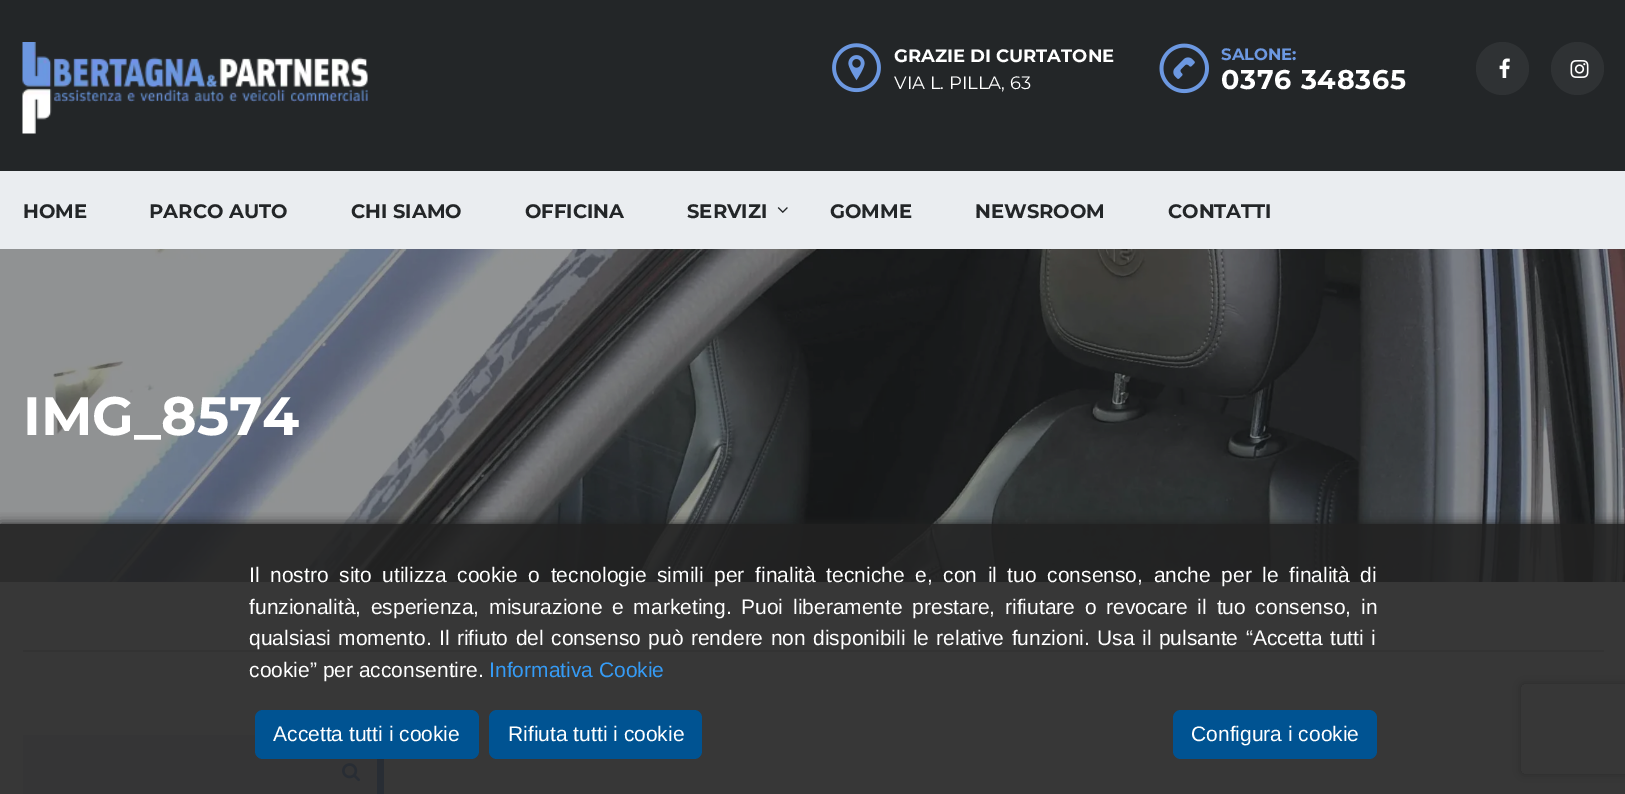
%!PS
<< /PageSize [1625 794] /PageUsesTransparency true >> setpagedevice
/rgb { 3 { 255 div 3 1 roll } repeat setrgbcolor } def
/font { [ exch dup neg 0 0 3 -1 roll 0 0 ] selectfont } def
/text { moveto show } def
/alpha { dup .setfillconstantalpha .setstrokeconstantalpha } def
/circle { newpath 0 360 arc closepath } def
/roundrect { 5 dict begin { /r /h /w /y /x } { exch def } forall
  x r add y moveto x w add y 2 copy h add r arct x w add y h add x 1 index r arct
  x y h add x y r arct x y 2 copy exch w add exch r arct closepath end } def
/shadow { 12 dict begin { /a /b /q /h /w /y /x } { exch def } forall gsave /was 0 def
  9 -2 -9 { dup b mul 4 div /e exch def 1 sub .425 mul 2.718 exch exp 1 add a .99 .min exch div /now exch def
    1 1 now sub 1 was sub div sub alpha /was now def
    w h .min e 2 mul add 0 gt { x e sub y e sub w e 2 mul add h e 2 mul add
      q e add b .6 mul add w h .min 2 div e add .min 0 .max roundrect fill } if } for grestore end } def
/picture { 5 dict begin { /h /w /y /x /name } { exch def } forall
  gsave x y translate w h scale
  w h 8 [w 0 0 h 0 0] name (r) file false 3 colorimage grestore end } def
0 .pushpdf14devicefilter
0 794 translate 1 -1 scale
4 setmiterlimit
255 255 255 rgb
0 0 1625 794 rectfill
35 38 40 rgb
0 0 1625 171 rectfill
(img_01.rgb) 22 42 346 92 picture
(img_02.rgb) 832 43 49 50 picture
(img_03.rgb) 1159 43 50 51 picture
47 50 52 rgb
1502.5 68.5 26.5 circle fill
(img_04.rgb) 1499 58 11 20 picture
1577.5 68.5 26.5 circle fill
(img_05.rgb) 1570 60 19 18 picture
234 237 240 rgb
0 171 1625 78 rectfill
(img_06.rgb) 777 207 11 6 picture
(img_07.rgb) 0 249 1625 333 picture
221 221 221 rgb
23 650 1581 2 rectfill
236 239 243 rgb
23 735 354 59 rectfill
108 152 225 rgb
377 759 7 35 rectfill
(img_08.rgb) 342 763 18 19 picture
gsave
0 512 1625 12 rectclip
33 33 33 rgb
0 524 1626 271 0 6 1 shadow
grestore
gsave
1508 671 moveto 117 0 rlineto 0 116 rlineto -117 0 rlineto closepath 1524 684 moveto 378 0 rlineto 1.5 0 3 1.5 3 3 rcurveto 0 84 rlineto 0 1.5 -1.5 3 -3 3 rcurveto -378 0 rlineto -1.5 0 -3 -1.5 -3 -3 rcurveto 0 -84 rlineto 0 -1.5 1.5 -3 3 -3 rcurveto closepath eoclip newpath
128 128 128 rgb
1521 684 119 90 3 4 1 shadow
grestore
0.9 alpha
33 33 33 rgb
0 524 1625 270 rectfill
1 alpha
0 83 146 rgb
255 710 224 49 8 roundrect fill
489 710 213 49 8 roundrect fill
1173 710 204 49 8 roundrect fill
/Montserrat-Bold 18 font
255 255 255 rgb
(GRAZIE DI CURTATONE) 894 62 text
/Montserrat-Regular 18 font
(VIA L. PILLA, 63) 894 89 text
/Montserrat-Bold 16.5 font
108 152 225 rgb
(SALONE:) 1221 60 text
/Montserrat-Bold 27 font
255 255 255 rgb
1221 89 moveto 0.75 0 (0376 348365) ashow
/Montserrat-Bold 19.5 font
35 38 40 rgb
(HOME) 23 218 text
(PARCO AUTO) 149 218 text
(CHI SIAMO) 351 218 text
(OFFICINA) 525 218 text
(SERVIZI) 687 218 text
(GOMME) 830 218 text
(NEWSROOM) 975 218 text
(CONTATTI) 1168 218 text
/Montserrat-Bold 54 font
255 255 255 rgb
(IMG_8574) 23 435 text
/LiberationSans-Regular 21 font
249 582 moveto 4.75 0 32 (Il nostro sito utilizza cookie o tecnologie simili per finalità tecniche e, con il tuo consenso, anche per le finalità di) widthshow
249 614 moveto 3.9 0 32 (funzionalità, esperienza, misurazione e marketing. Puoi liberamente prestare, rifiutare o revocare il tuo consenso, in) widthshow
249 645 moveto 1.6 0 32 (qualsiasi momento. Il rifiuto del consenso può rendere non disponibili le relative funzioni. Usa il pulsante “Accetta tutti i) widthshow
(cookie” per acconsentire.) 249 677 text
53 155 245 rgb
(Informativa Cookie) 489 677 text
255 255 255 rgb
(Accetta tutti i cookie) 273 741 text
(Rifiuta tutti i cookie) 508 741 text
(Configura i cookie) 1191 741 text
.poppdf14devicefilter showpage
